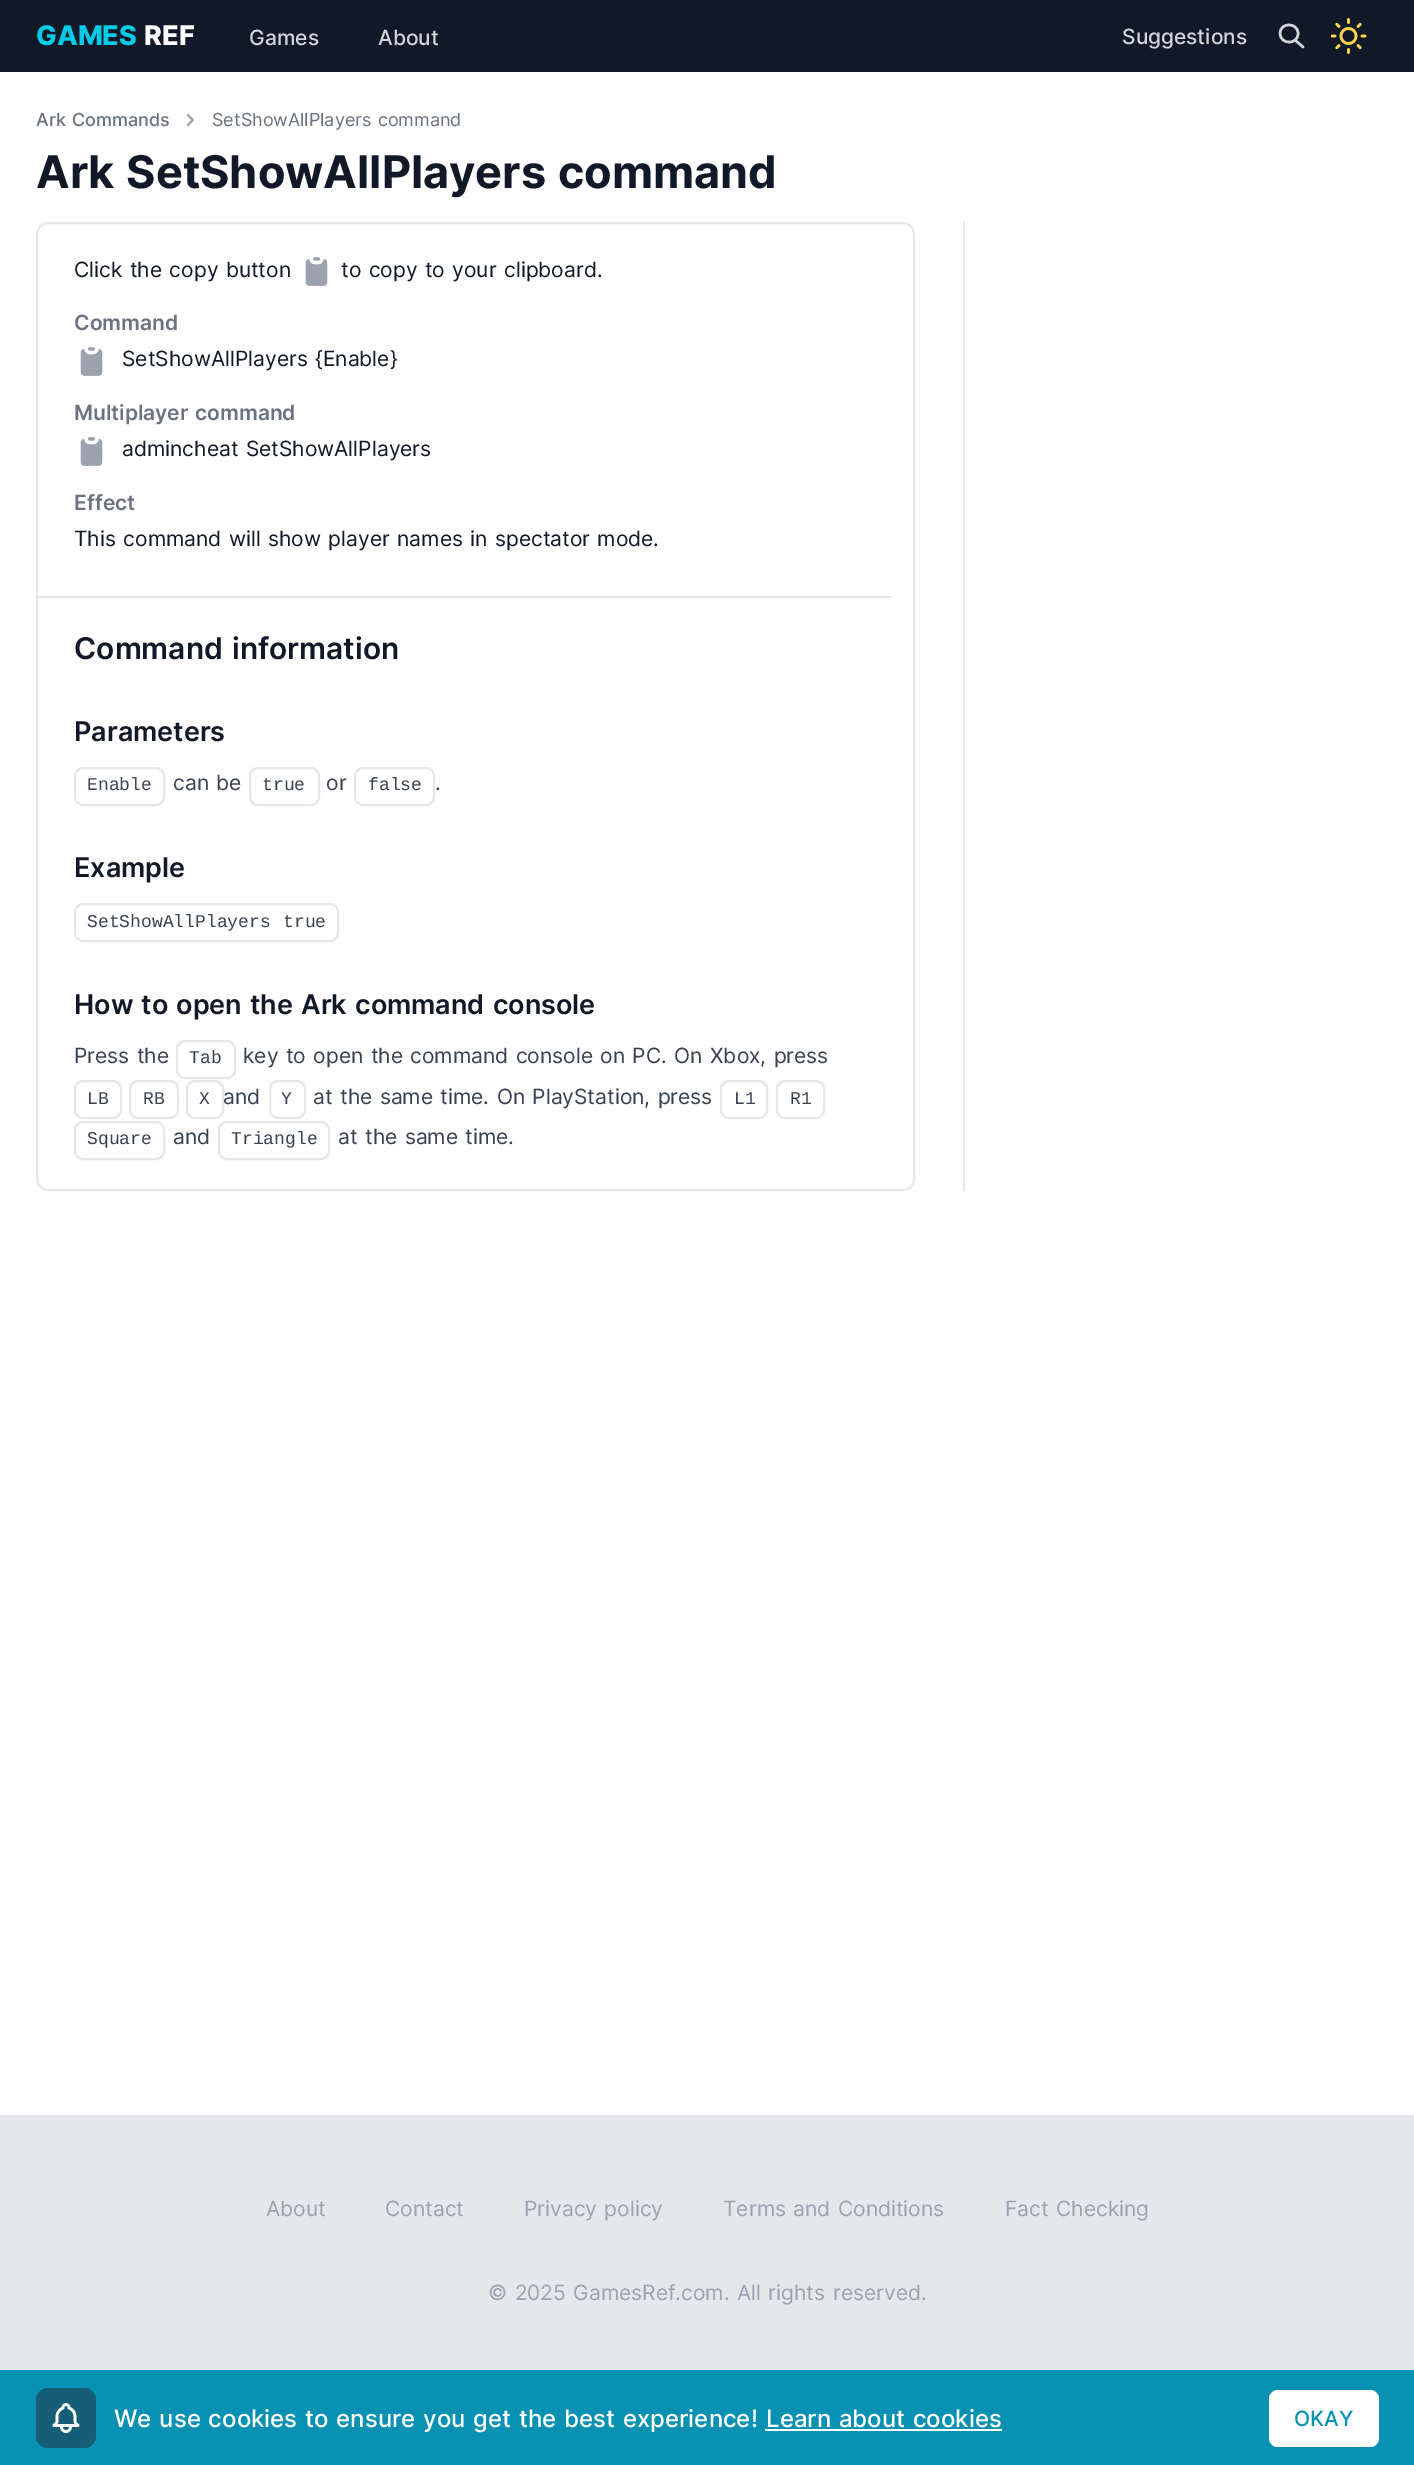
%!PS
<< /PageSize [1414 2465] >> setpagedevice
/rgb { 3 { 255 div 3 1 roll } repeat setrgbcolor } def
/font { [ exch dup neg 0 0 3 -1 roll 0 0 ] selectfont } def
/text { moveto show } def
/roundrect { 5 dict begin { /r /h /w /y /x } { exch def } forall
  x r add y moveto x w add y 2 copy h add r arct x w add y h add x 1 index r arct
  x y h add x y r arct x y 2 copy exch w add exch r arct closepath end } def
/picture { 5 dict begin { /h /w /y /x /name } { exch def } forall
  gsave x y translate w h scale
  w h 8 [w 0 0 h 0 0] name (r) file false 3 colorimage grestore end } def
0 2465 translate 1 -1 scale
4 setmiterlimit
255 255 255 rgb
0 0 1414 2465 rectfill
17 24 39 rgb
0 0 1414 72 rectfill
209 213 219 rgb
2.5 setlinewidth
1 setlinecap
1 setlinejoin
1303 47 moveto -8 -7 rlineto 1298 33.5 moveto 0 11.5 -17.5 11.5 -18 0 rcurveto 0 -11.5 18 -11.5 18 0 rcurveto closepath stroke
(img_01.rgb) 1331 18 36 36 picture
(img_02.rgb) 186 114 8 12 picture
229 231 235 rgb
2 setlinewidth
0 setlinecap
0 setlinejoin
37 223 877 967 11 roundrect stroke
(img_03.rgb) 305 257 23 29 picture
(img_03.rgb) 80 347 23 29 picture
(img_03.rgb) 80 437 23 29 picture
38 596 853 2 rectfill
75 768 89 37 8 roundrect stroke
250 768 69 37 8 roundrect stroke
355 768 79 37 8 roundrect stroke
75 904 263 37 8 roundrect stroke
177 1041 58 37 8 roundrect stroke
75 1081 46 37 8 roundrect stroke
130 1081 48 37 8 roundrect stroke
187 1081 36 37 8 roundrect stroke
270 1081 35 37 8 roundrect stroke
721 1081 46 37 8 roundrect stroke
777 1081 47 37 8 roundrect stroke
75 1122 89 37 8 roundrect stroke
219 1122 110 37 8 roundrect stroke
963 222 2 969 rectfill
0 2115 1414 255 rectfill
8 145 178 rgb
0 2370 1414 95 rectfill
21 94 117 rgb
36 2388 60 60 12 roundrect fill
(img_04.rgb) 52 2403 28 30 picture
255 255 255 rgb
765 2429 237 2 rectfill
1269 2390 110 57 9 roundrect fill
/Inter-ExtraBold 27 font
0 203 230 rgb
(GAMES) 36 45 text
255 255 255 rgb
(REF) 144 45 text
/Inter-Medium 21 font
209 213 219 rgb
(Games) 249 45 text
(About) 378 45 text
(Suggestions) 1122 44 text
/Inter-Medium 18 font
107 114 128 rgb
36 126 moveto 1.5 0 32 (Ark Commands) widthshow
/Inter-Regular 18 font
212 126 moveto 1.5 0 32 (SetShowAllPlayers command) widthshow
/Inter-Bold 45 font
17 24 39 rgb
36 188 moveto 1.5 0 32 (Ark SetShowAllPlayers command) widthshow
/Inter-Regular 21 font
74 277 moveto 1.5 0 32 (Click the copy button) widthshow
341 277 moveto 1.5 0 32 (to copy to your clipboard.) widthshow
/Inter-SemiBold 21 font
107 114 128 rgb
(Command) 74 330 text
/Inter-Regular 21 font
17 24 39 rgb
122 366 moveto 1.5 0 32 (SetShowAllPlayers {Enable}) widthshow
/Inter-SemiBold 21 font
107 114 128 rgb
74 420 moveto 1.5 0 32 (Multiplayer command) widthshow
/Inter-Regular 21 font
17 24 39 rgb
122 456 moveto 1.5 0 32 (admincheat SetShowAllPlayers) widthshow
/Inter-SemiBold 21 font
107 114 128 rgb
(Effect) 74 510 text
/Inter-Regular 21 font
17 24 39 rgb
74 546 moveto 1.5 0 32 (This command will show player names in spectator mode.) widthshow
/Inter-SemiBold 30 font
74 659 moveto 1.5 0 32 (Command information) widthshow
/Inter-SemiBold 27 font
(Parameters) 74 741 text
/LiberationMono-Regular 18 font
55 65 81 rgb
(Enable) 87 790 text
/Inter-Regular 21 font
173 790 moveto 1.5 0 32 (can be) widthshow
/LiberationMono-Regular 18 font
(true) 262 790 text
/Inter-Regular 21 font
(or) 326 790 text
/LiberationMono-Regular 18 font
(false) 368 790 text
/Inter-Regular 21 font
(.) 435 790 text
/Inter-SemiBold 27 font
17 24 39 rgb
(Example) 74 877 text
/LiberationMono-Regular 18 font
55 65 81 rgb
87 927 moveto 1.5 0 32 (SetShowAllPlayers true) widthshow
/Inter-SemiBold 27 font
17 24 39 rgb
74 1014 moveto 1.5 0 32 (How to open the Ark command console) widthshow
/Inter-Regular 21 font
55 65 81 rgb
74 1063 moveto 1.5 0 32 (Press the) widthshow
/LiberationMono-Regular 18 font
(Tab) 189 1063 text
/Inter-Regular 21 font
243 1063 moveto 1.5 0 32 (key to open the command console on PC. On) widthshow
710 1063 moveto 1.5 0 32 (Xbox, press) widthshow
/LiberationMono-Regular 18 font
(LB) 87 1104 text
(RB) 143 1104 text
(X) 199 1104 text
/Inter-Regular 21 font
(and) 223 1104 text
/LiberationMono-Regular 18 font
(Y) 281 1104 text
/Inter-Regular 21 font
313 1104 moveto 1.5 0 32 (at the same time. On PlayStation, press) widthshow
/LiberationMono-Regular 18 font
(L1) 734 1104 text
(R1) 790 1104 text
(Square) 87 1144 text
/Inter-Regular 21 font
(and) 173 1144 text
/LiberationMono-Regular 18 font
(Triangle) 231 1144 text
/Inter-Regular 21 font
338 1144 moveto 1.5 0 32 (at the same time.) widthshow
156 163 175 rgb
(About) 266 2216 text
(Contact) 385 2216 text
524 2216 moveto 1.5 0 32 (Privacy policy) widthshow
723 2216 moveto 1.5 0 32 (Terms and Conditions) widthshow
1005 2216 moveto 1.5 0 32 (Fact Checking) widthshow
488 2300 moveto 1.5 0 32 (© 2025 GamesRef.com. All rights) widthshow
(reserved.) 833 2300 text
/Inter-Medium 24 font
255 255 255 rgb
114 2427 moveto 1.5 0 32 (We use cookies to ensure you get the best experience!) widthshow
766 2427 moveto 1.5 0 32 (Learn about cookies) widthshow
/Inter-Medium 21 font
8 145 178 rgb
(OKAY) 1294 2426 text
showpage
